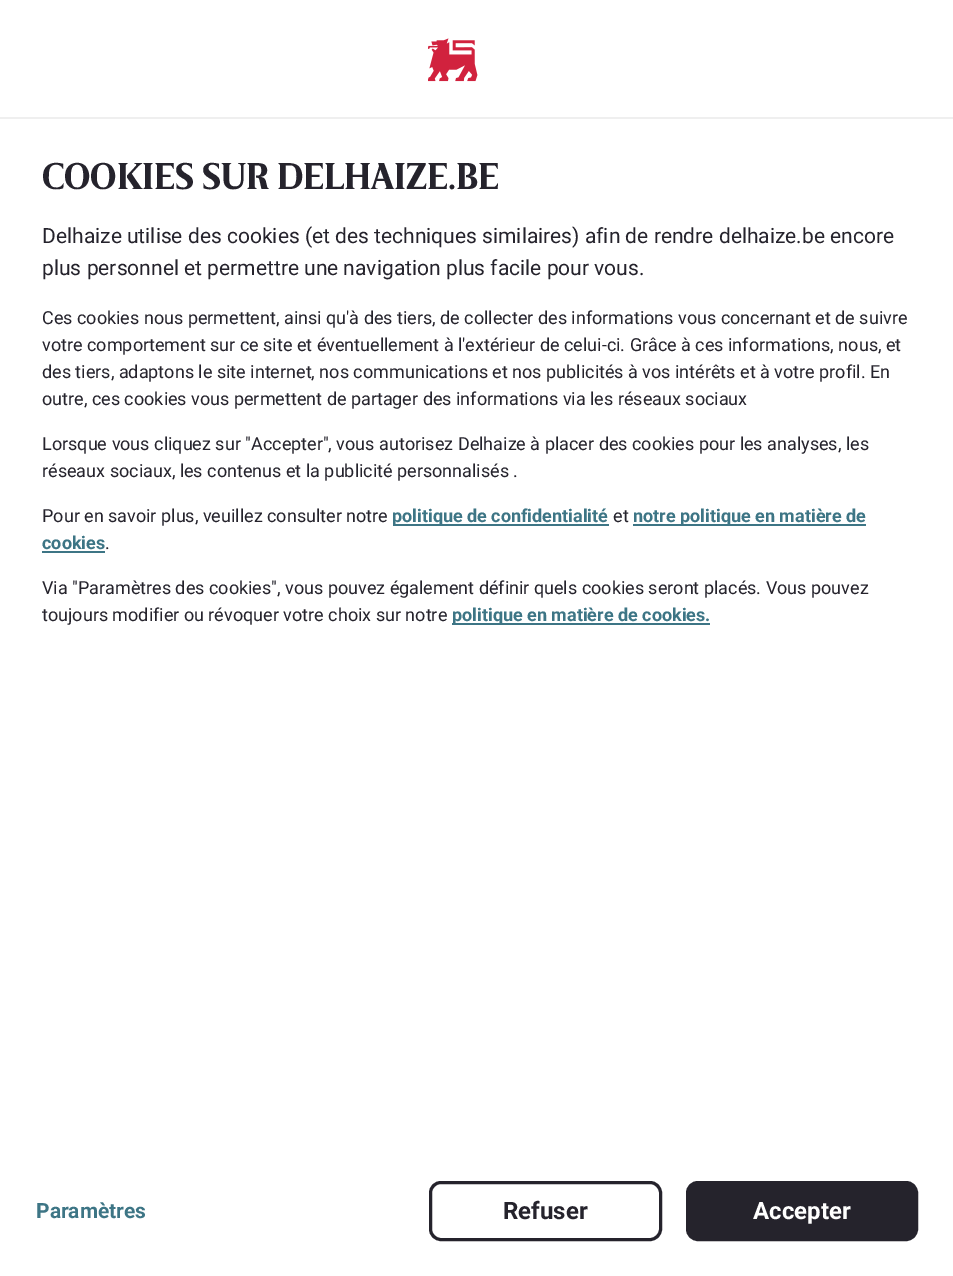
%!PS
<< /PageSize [953 1276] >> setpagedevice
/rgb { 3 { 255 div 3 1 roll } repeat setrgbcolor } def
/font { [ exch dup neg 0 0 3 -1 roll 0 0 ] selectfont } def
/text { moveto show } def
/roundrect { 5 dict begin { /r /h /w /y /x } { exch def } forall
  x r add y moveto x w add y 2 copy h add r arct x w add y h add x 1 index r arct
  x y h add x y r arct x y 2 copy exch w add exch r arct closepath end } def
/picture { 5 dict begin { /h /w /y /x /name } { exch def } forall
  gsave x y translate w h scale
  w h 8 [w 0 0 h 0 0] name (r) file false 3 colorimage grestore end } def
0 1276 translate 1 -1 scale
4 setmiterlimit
255 255 255 rgb
0 0 953 1276 rectfill
239 239 239 rgb
0 117 953 2 rectfill
(img_01.rgb) 428 38 50 44 picture
61 117 133 rgb
393 524 216 2 rectfill
633 524 233 2 rectfill
42 551 63 2 rectfill
452 623 258 2 rectfill
37 35 44 rgb
3 setlinewidth
430.5 1182.5 230 57 10.5 roundrect stroke
687.5 1182.5 229 57 10.5 roundrect gsave fill grestore
stroke
/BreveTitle-Bold 36 font
(COOKIES SUR DELHAIZE.BE) 42 189 text
/Roboto-Regular 21 font
(Delhaize utilise des cookies \(et des techniques similaires\) afin de rendre delhaize.be encore) 42 243 text
(plus personnel et permettre une navigation plus facile pour vous.) 42 275 text
/Roboto-Regular 18 font
(Ces cookies nous permettent, ainsi qu'à des tiers, de collecter des informations vous concernant et de suivre) 42 324 text
(votre comportement sur ce site et éventuellement à l'extérieur de celui-ci. Grâce à ces informations, nous, et) 42 351 text
(des tiers, adaptons le site internet, nos communications et nos publicités à vos intérêts et à votre profil. En) 42 378 text
(outre, ces cookies vous permettent de partager des informations via les réseaux sociaux) 42 405 text
(Lorsque vous cliquez sur "Accepter", vous autorisez Delhaize à placer des cookies pour les analyses, les) 42 450 text
(réseaux sociaux, les contenus et la publicité personnalisés .) 42 477 text
(Pour en savoir plus, veuillez consulter notre) 42 522 text
/Roboto-Bold 18 font
61 117 133 rgb
(politique de confidentialité) 392 522 text
/Roboto-Regular 18 font
37 35 44 rgb
(et) 613 522 text
/Roboto-Bold 18 font
61 117 133 rgb
(notre politique en matière de) 633 522 text
(cookies) 42 549 text
/Roboto-Regular 18 font
37 35 44 rgb
(.) 105 549 text
(Via "Paramètres des cookies", vous pouvez également définir quels cookies seront placés. Vous pouvez) 42 594 text
(toujours modifier ou révoquer votre choix sur notre) 42 621 text
/Roboto-Bold 18 font
61 117 133 rgb
(politique en matière de cookies.) 452 621 text
/Roboto-Bold 21 font
(Paramètres) 36 1218 text
/Roboto-Bold 24 font
37 35 44 rgb
(Refuser) 503 1219 text
255 255 255 rgb
(Accepter) 753 1219 text
showpage
